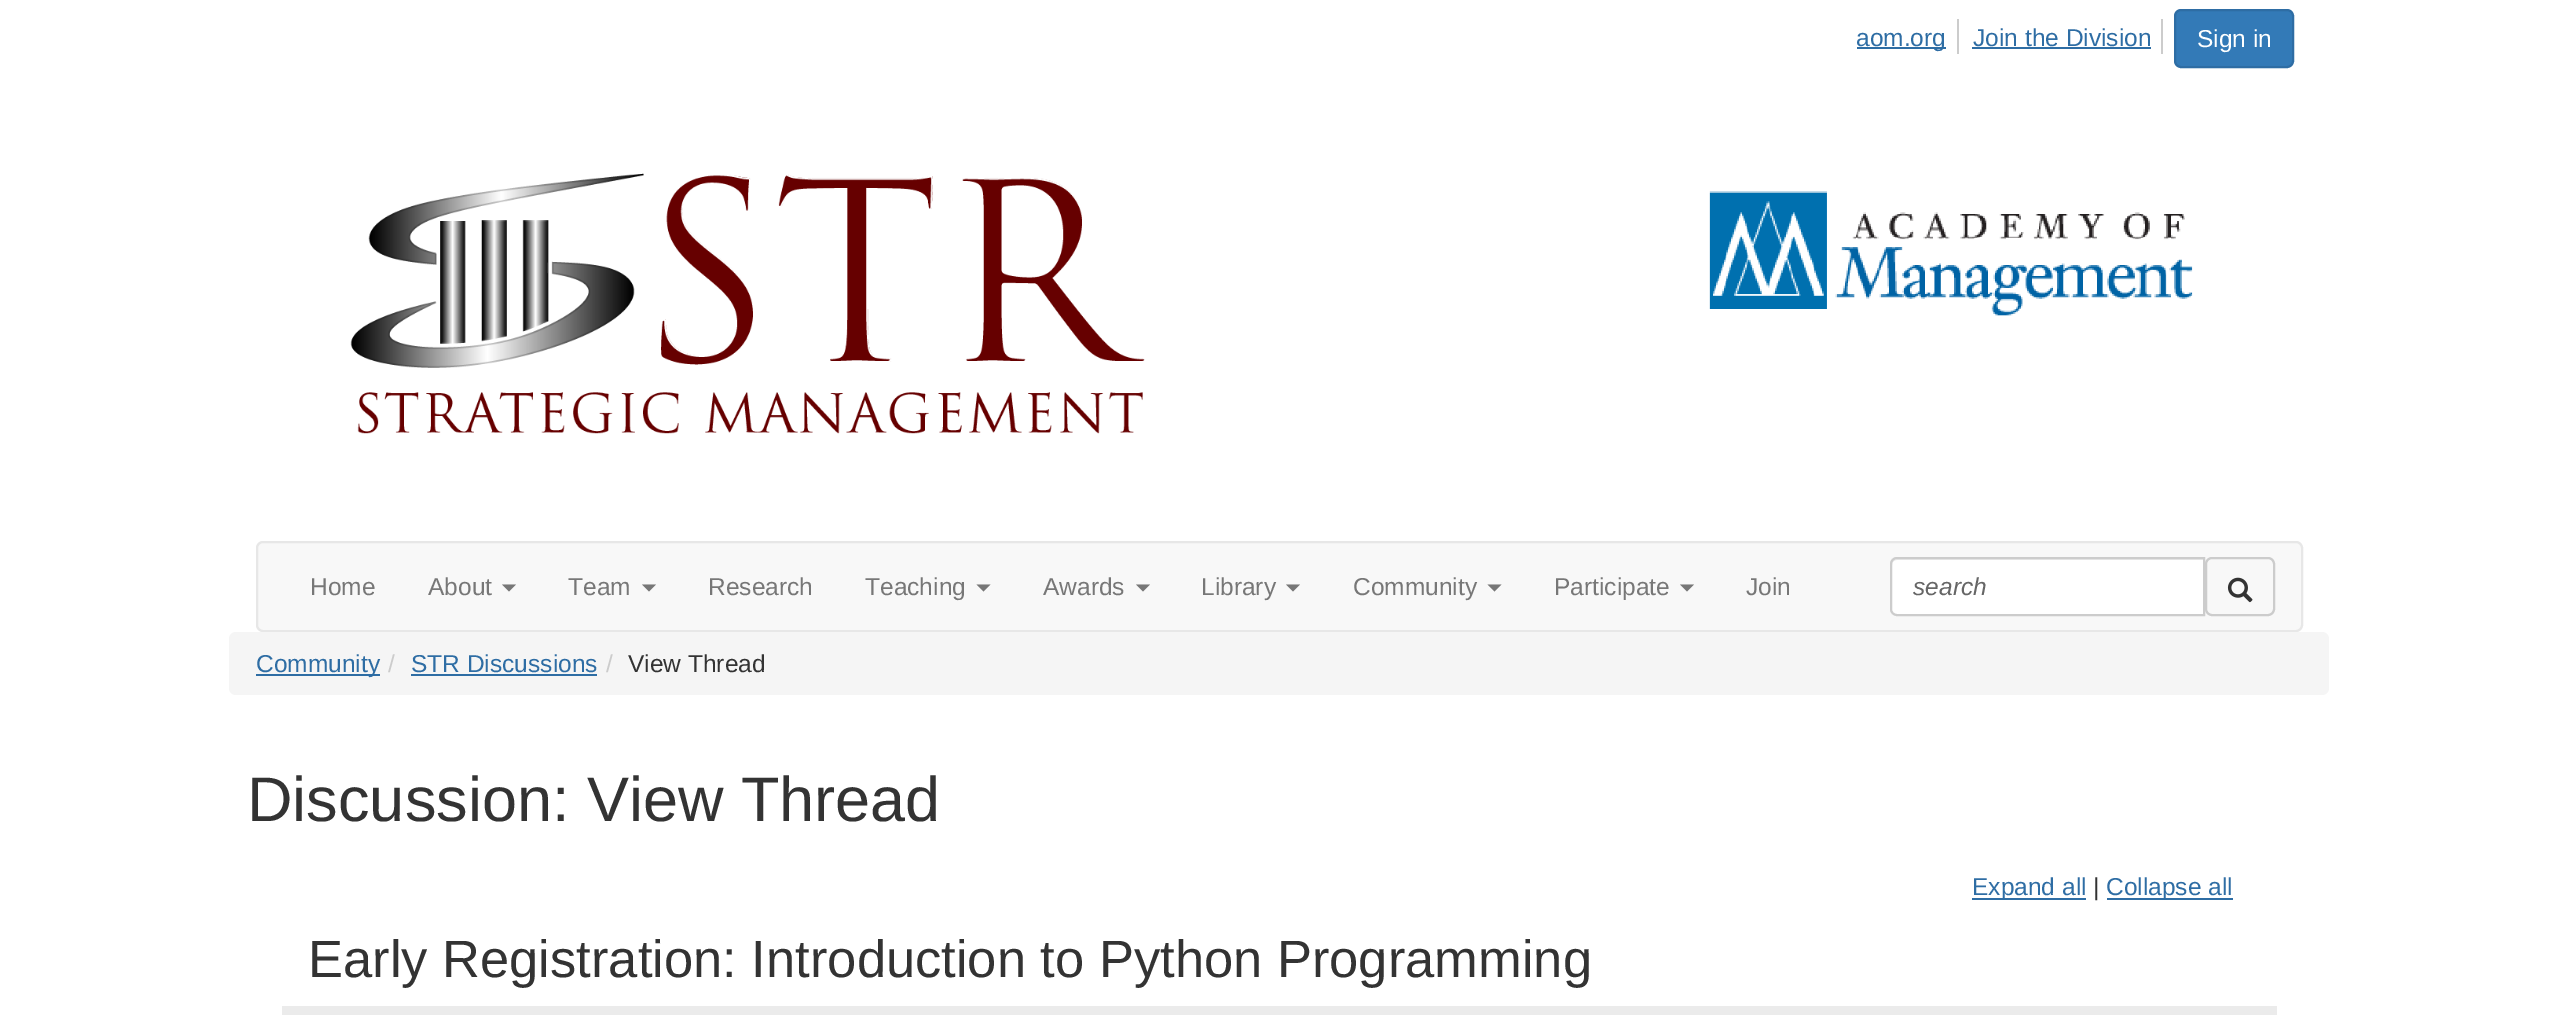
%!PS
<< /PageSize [2557 1015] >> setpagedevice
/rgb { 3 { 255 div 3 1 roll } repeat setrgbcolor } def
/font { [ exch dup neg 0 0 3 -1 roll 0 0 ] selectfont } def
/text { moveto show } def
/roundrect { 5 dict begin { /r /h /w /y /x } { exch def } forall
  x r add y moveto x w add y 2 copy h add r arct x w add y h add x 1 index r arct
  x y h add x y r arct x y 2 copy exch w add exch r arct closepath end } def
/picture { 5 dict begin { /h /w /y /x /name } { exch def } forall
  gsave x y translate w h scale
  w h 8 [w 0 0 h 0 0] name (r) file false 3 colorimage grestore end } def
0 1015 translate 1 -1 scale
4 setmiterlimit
255 255 255 rgb
0 0 2557 1015 rectfill
204 204 204 rgb
1957 19 2 35 rectfill
46 109 164 rgb
1857 47 89 2 rectfill
204 204 204 rgb
2161 19 2 35 rectfill
46 109 164 rgb
1972 47 179 2 rectfill
51 122 183 rgb
2175 10 118 57 6 roundrect gsave fill grestore
46 109 164 rgb
2 setlinewidth
stroke
(img_01.rgb) 350 173 1843 261 picture
248 248 248 rgb
257 542 2045 89 6 roundrect gsave fill grestore
231 231 231 rgb
stroke
119 119 119 rgb
502 584.5 moveto 14 0 rlineto -7 7 rlineto closepath fill
642 584.5 moveto 14 0 rlineto -7 7 rlineto closepath fill
976.5 584.5 moveto 14 0 rlineto -7 7 rlineto closepath fill
1136 584.5 moveto 14 0 rlineto -7 7 rlineto closepath fill
1286 584.5 moveto 14 0 rlineto -7 7 rlineto closepath fill
1487.5 584.5 moveto 14 0 rlineto -7 7 rlineto closepath fill
1680 584.5 moveto 14 0 rlineto -7 7 rlineto closepath fill
255 255 255 rgb
1897 557 moveto 308 0 rlineto 0 59 rlineto -308 0 rlineto -4 0 -7 -3 -7 -7 rcurveto 0 -45 rlineto 0 -4 3 -7 7 -7 rcurveto closepath fill
236 236 236 rgb
1897 560 moveto 306 0 rlineto 0 -2 rlineto -307 0 rlineto -4 1 -4 4 -4 7 rcurveto 0 -3 2 -5 5 -5 rcurveto closepath fill
204 204 204 rgb
1897 558 moveto 307 0 rlineto 0 57 rlineto -307 0 rlineto -3.5 0 -6 -2.5 -6 -6 rcurveto 0 -45 rlineto 0 -3.5 2.5 -6 6 -6 rcurveto closepath stroke
2206 558 68 57 6 roundrect stroke
(img_02.rgb) 2227 577 26 26 picture
245 245 245 rgb
229 632 2100 63 7 roundrect fill
46 109 164 rgb
256 674 124 2 rectfill
411 674 186 2 rectfill
1972 898 114 2 rectfill
2107 898 126 2 rectfill
235 235 235 rgb
282 1006 1995 9 rectfill
/LiberationSans-Regular 24.5 font
46 109 164 rgb
(aom.org) 1856 46 text
(Join the Division) 1973 46 text
255 255 255 rgb
(Sign in) 2197 47 text
119 119 119 rgb
(Home) 310 595 text
(About) 428 595 text
(Team) 568 595 text
(Research) 708 595 text
(Teaching) 865 595 text
(Awards) 1043 595 text
(Library) 1201 595 text
(Community) 1353 595 text
(Participate) 1554 595 text
(Join) 1746 595 text
/LiberationSans-Italic 24.5 font
102 102 102 rgb
(search) 1913 595 text
/LiberationSans-Regular 24.5 font
46 109 164 rgb
(Community) 256 672 text
204 204 204 rgb
(/) 388 672 text
46 109 164 rgb
(STR Discussions) 411 672 text
204 204 204 rgb
(/) 606 672 text
51 51 51 rgb
(View Thread) 628 672 text
/LiberationSans-Regular 63 font
(Discussion: View Thread) 247 821 text
/LiberationSans-Regular 24.5 font
46 109 164 rgb
(Expand all) 1972 895 text
51 51 51 rgb
(|) 2093 895 text
46 109 164 rgb
(Collapse all) 2106 895 text
/LiberationSans-Regular 52.5 font
51 51 51 rgb
(Early Registration: Introduction to Python Programming) 308 977 text
showpage
